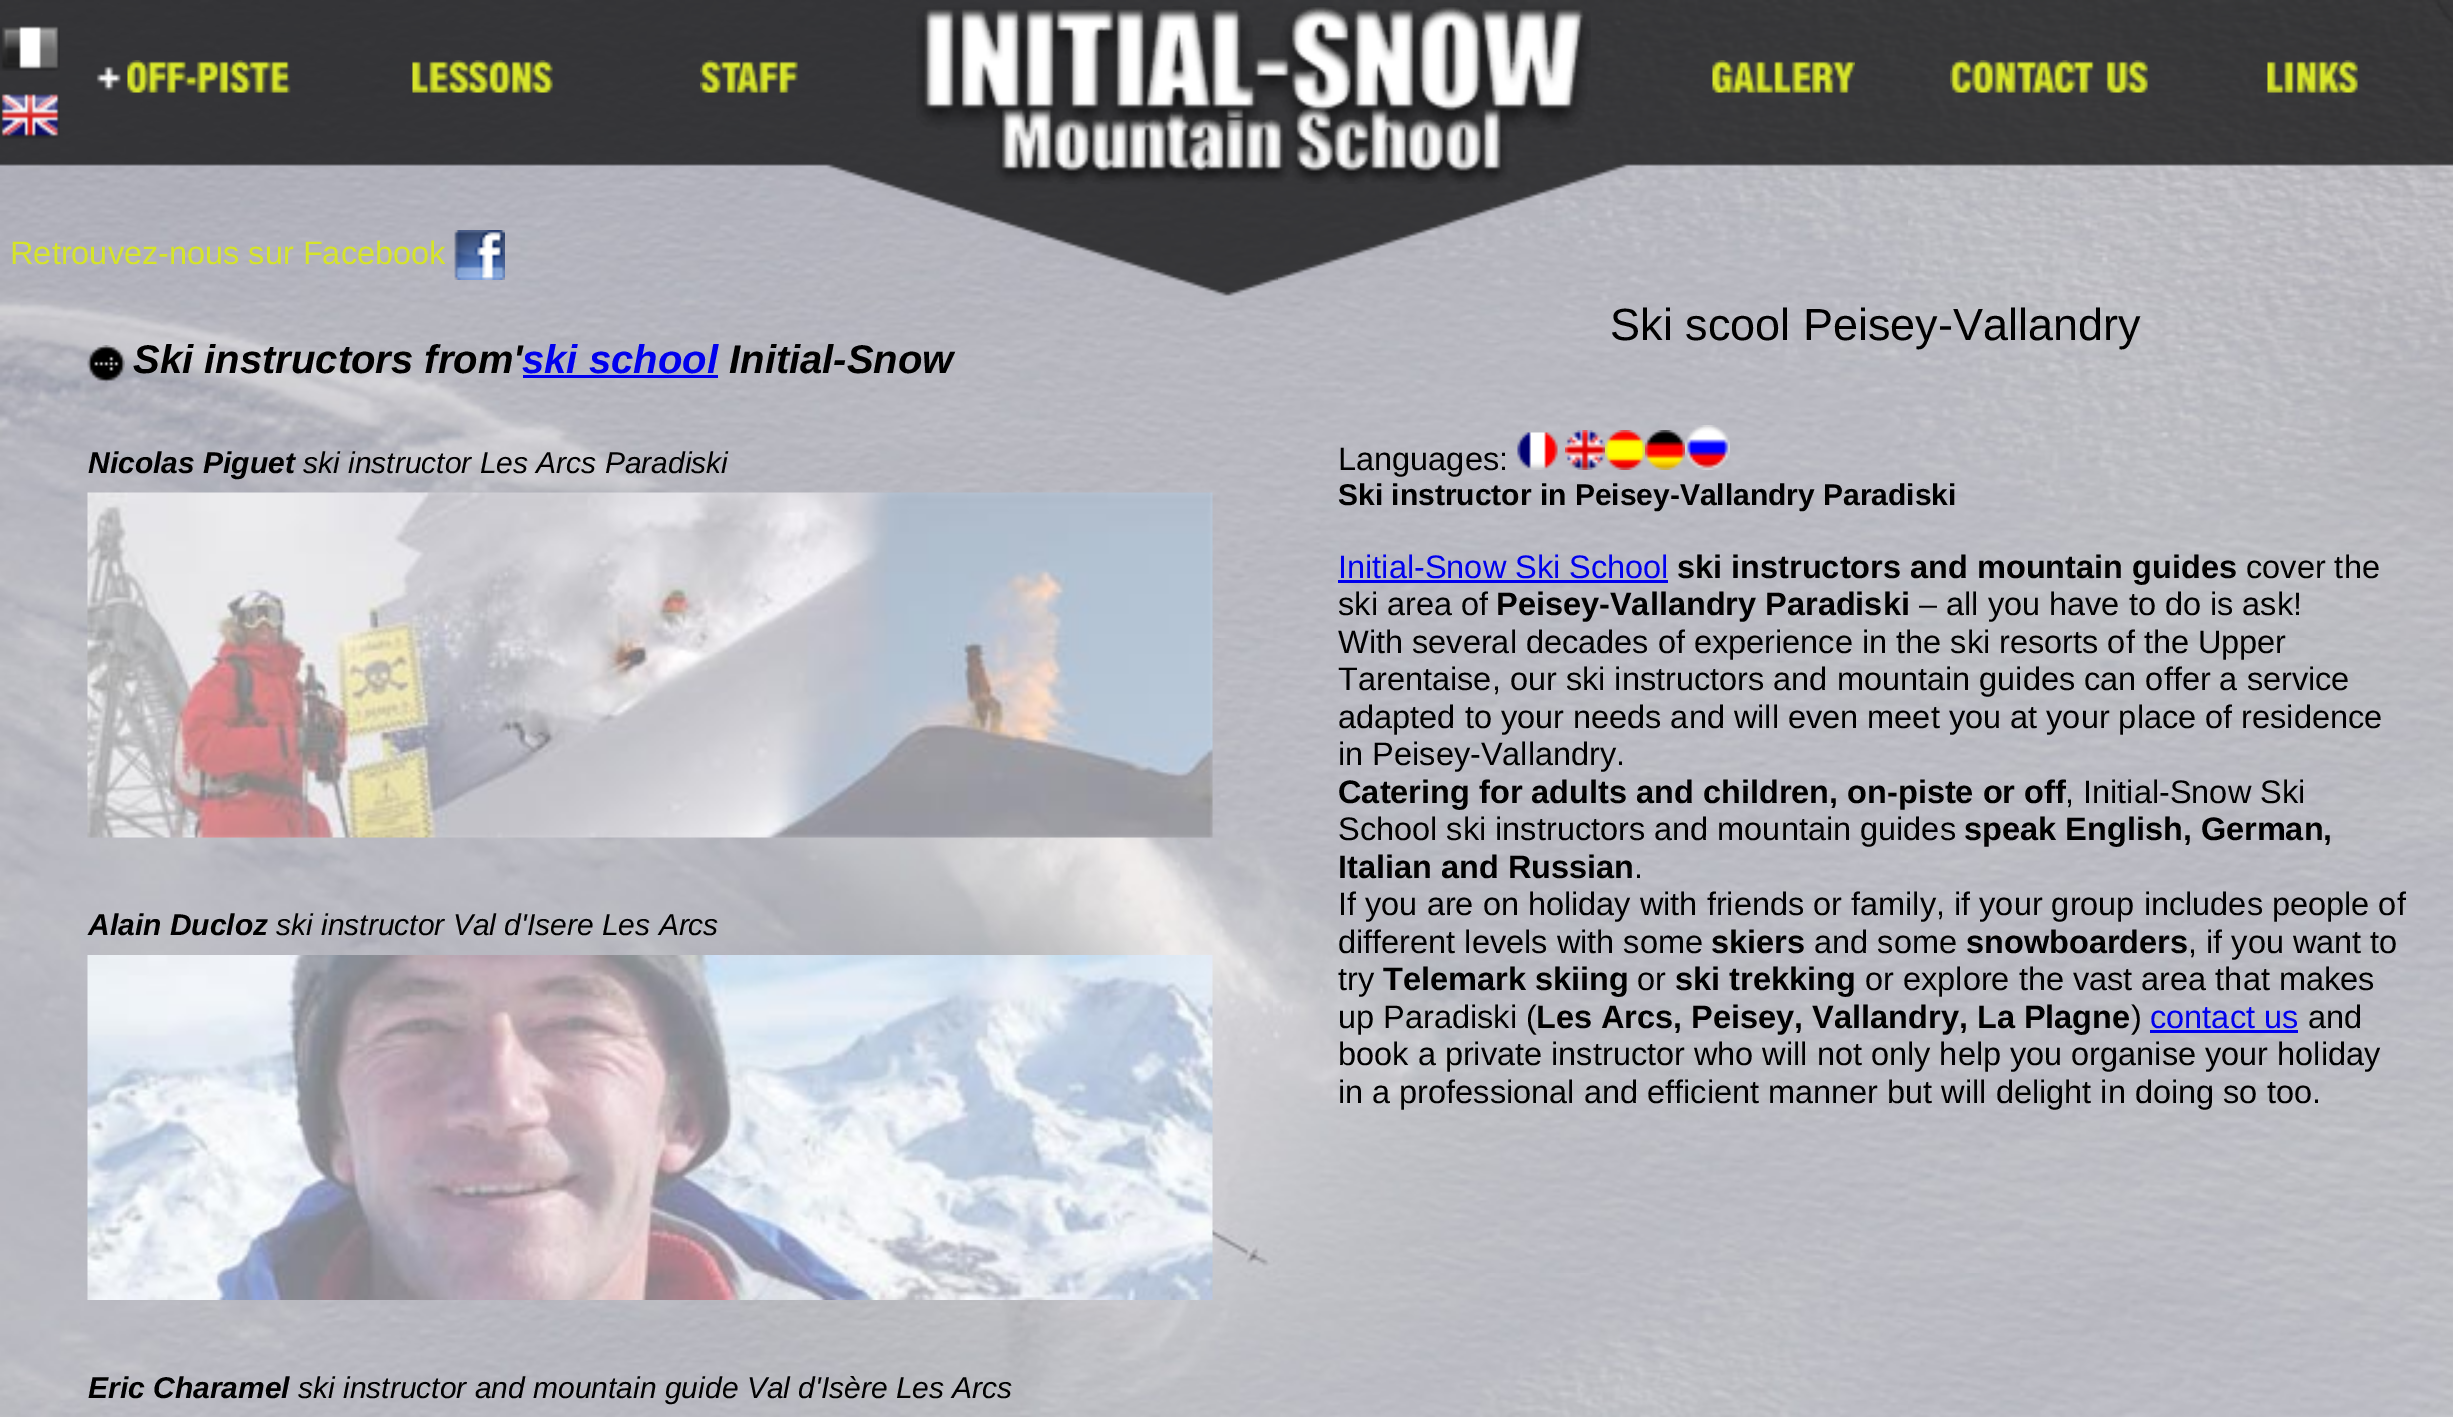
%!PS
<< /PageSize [2453 1417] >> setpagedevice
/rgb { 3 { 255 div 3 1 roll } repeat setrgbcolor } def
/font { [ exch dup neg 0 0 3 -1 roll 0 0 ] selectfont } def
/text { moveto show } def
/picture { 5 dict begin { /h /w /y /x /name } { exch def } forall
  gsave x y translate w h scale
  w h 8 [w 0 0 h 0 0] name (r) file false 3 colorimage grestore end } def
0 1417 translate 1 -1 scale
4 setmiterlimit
255 255 255 rgb
0 0 2453 1417 rectfill
(img_01.rgb) 0 0 2453 1417 picture
(img_02.rgb) 0 0 2453 296 picture
(img_03.rgb) 0 26 60 45 picture
(img_04.rgb) 0 94 60 45 picture
(img_05.rgb) 96 66 25 25 picture
(img_06.rgb) 127 60 164 33 picture
(img_07.rgb) 412 60 141 33 picture
(img_08.rgb) 700 60 98 33 picture
(img_09.rgb) 916 6 675 178 picture
(img_10.rgb) 1712 60 143 33 picture
(img_11.rgb) 1950 60 198 33 picture
(img_12.rgb) 2267 60 91 33 picture
(img_13.rgb) 454 230 51 50 picture
(img_14.rgb) 87 345 38 38 picture
0 0 238 rgb
523 375 195 3 rectfill
(img_15.rgb) 87 492 1126 346 picture
(img_16.rgb) 87 955 1126 345 picture
(img_17.rgb) 1517 432 41 38 picture
(img_18.rgb) 1565 430 40 40 picture
(img_19.rgb) 1605 430 40 40 picture
(img_20.rgb) 1645 430 40 40 picture
(img_21.rgb) 1685 425 45 45 picture
1338 580 330 3 rectfill
2150 1030 148 3 rectfill
/LiberationSans-Regular 32.5 font
214 228 42 rgb
(Retrouvez-nous sur Facebook) 10 264 text
/LiberationSans-BoldItalic 40 font
0 0 0 rgb
(Ski instructors from') 133 373 text
0 0 238 rgb
(ski school) 522 373 text
0 0 0 rgb
(Initial-Snow) 729 373 text
/LiberationSans-BoldItalic 30 font
(Nicolas Piguet) 88 473 text
/LiberationSans-Italic 30 font
(ski instructor Les Arcs Paradiski) 303 473 text
/LiberationSans-BoldItalic 30 font
(Alain Ducloz) 88 935 text
/LiberationSans-Italic 30 font
(ski instructor Val d'Isere Les Arcs) 276 935 text
/LiberationSans-BoldItalic 30 font
(Eric Charamel) 88 1398 text
/LiberationSans-Italic 30 font
(ski instructor and mountain guide Val d'Isère Les Arcs) 298 1398 text
/LiberationSans-Regular 45 font
(Ski scool Peisey-Vallandry) 1610 340 text
/LiberationSans-Regular 32.5 font
(Languages:) 1338 470 text
/LiberationSans-Bold 30 font
(Ski instructor in Peisey-Vallandry Paradiski) 1338 505 text
/LiberationSans-Regular 32.5 font
0 0 238 rgb
(Initial-Snow Ski School) 1338 578 text
/LiberationSans-Bold 32.5 font
0 0 0 rgb
(ski instructors and mountain guides) 1677 578 text
/LiberationSans-Regular 32.5 font
(cover the) 2246 578 text
(ski area of) 1338 615 text
/LiberationSans-Bold 32.5 font
(Peisey-Vallandry Paradiski) 1496 615 text
/LiberationSans-Regular 32.5 font
(– all you have to do is ask!) 1919 615 text
(With several decades of experience in the ski resorts of the Upper) 1338 653 text
(Tarentaise, our ski instructors and mountain guides can offer a service) 1338 690 text
(adapted to your needs and will even meet you at your place of residence) 1338 728 text
(in Peisey-Vallandry.) 1338 765 text
/LiberationSans-Bold 32.5 font
(Catering for adults and children, on-piste or off) 1338 803 text
/LiberationSans-Regular 32.5 font
(, Initial-Snow Ski) 2065 803 text
(School ski instructors and mountain guides) 1338 840 text
/LiberationSans-Bold 32.5 font
(speak English, German,) 1964 840 text
(Italian and Russian) 1338 878 text
/LiberationSans-Regular 32.5 font
(.) 1634 878 text
(If you are on holiday with friends or family, if your group includes people of) 1338 915 text
(different levels with some) 1338 953 text
/LiberationSans-Bold 32.5 font
(skiers) 1711 953 text
/LiberationSans-Regular 32.5 font
(and some) 1814 953 text
/LiberationSans-Bold 32.5 font
(snowboarders) 1966 953 text
/LiberationSans-Regular 32.5 font
(, if you want to) 2188 953 text
(try) 1338 990 text
/LiberationSans-Bold 32.5 font
(Telemark skiing) 1383 990 text
/LiberationSans-Regular 32.5 font
(or) 1637 990 text
/LiberationSans-Bold 32.5 font
(ski trekking) 1675 990 text
/LiberationSans-Regular 32.5 font
(or explore the vast area that makes) 1865 990 text
(up Paradiski \() 1338 1028 text
/LiberationSans-Bold 32.5 font
(Les Arcs, Peisey, Vallandry, La Plagne) 1536 1028 text
/LiberationSans-Regular 32.5 font
(\)) 2131 1028 text
0 0 238 rgb
(contact us) 2150 1028 text
0 0 0 rgb
(and) 2308 1028 text
(book a private instructor who will not only help you organise your holiday) 1338 1065 text
(in a professional and efficient manner but will delight in doing so too.) 1338 1103 text
showpage
